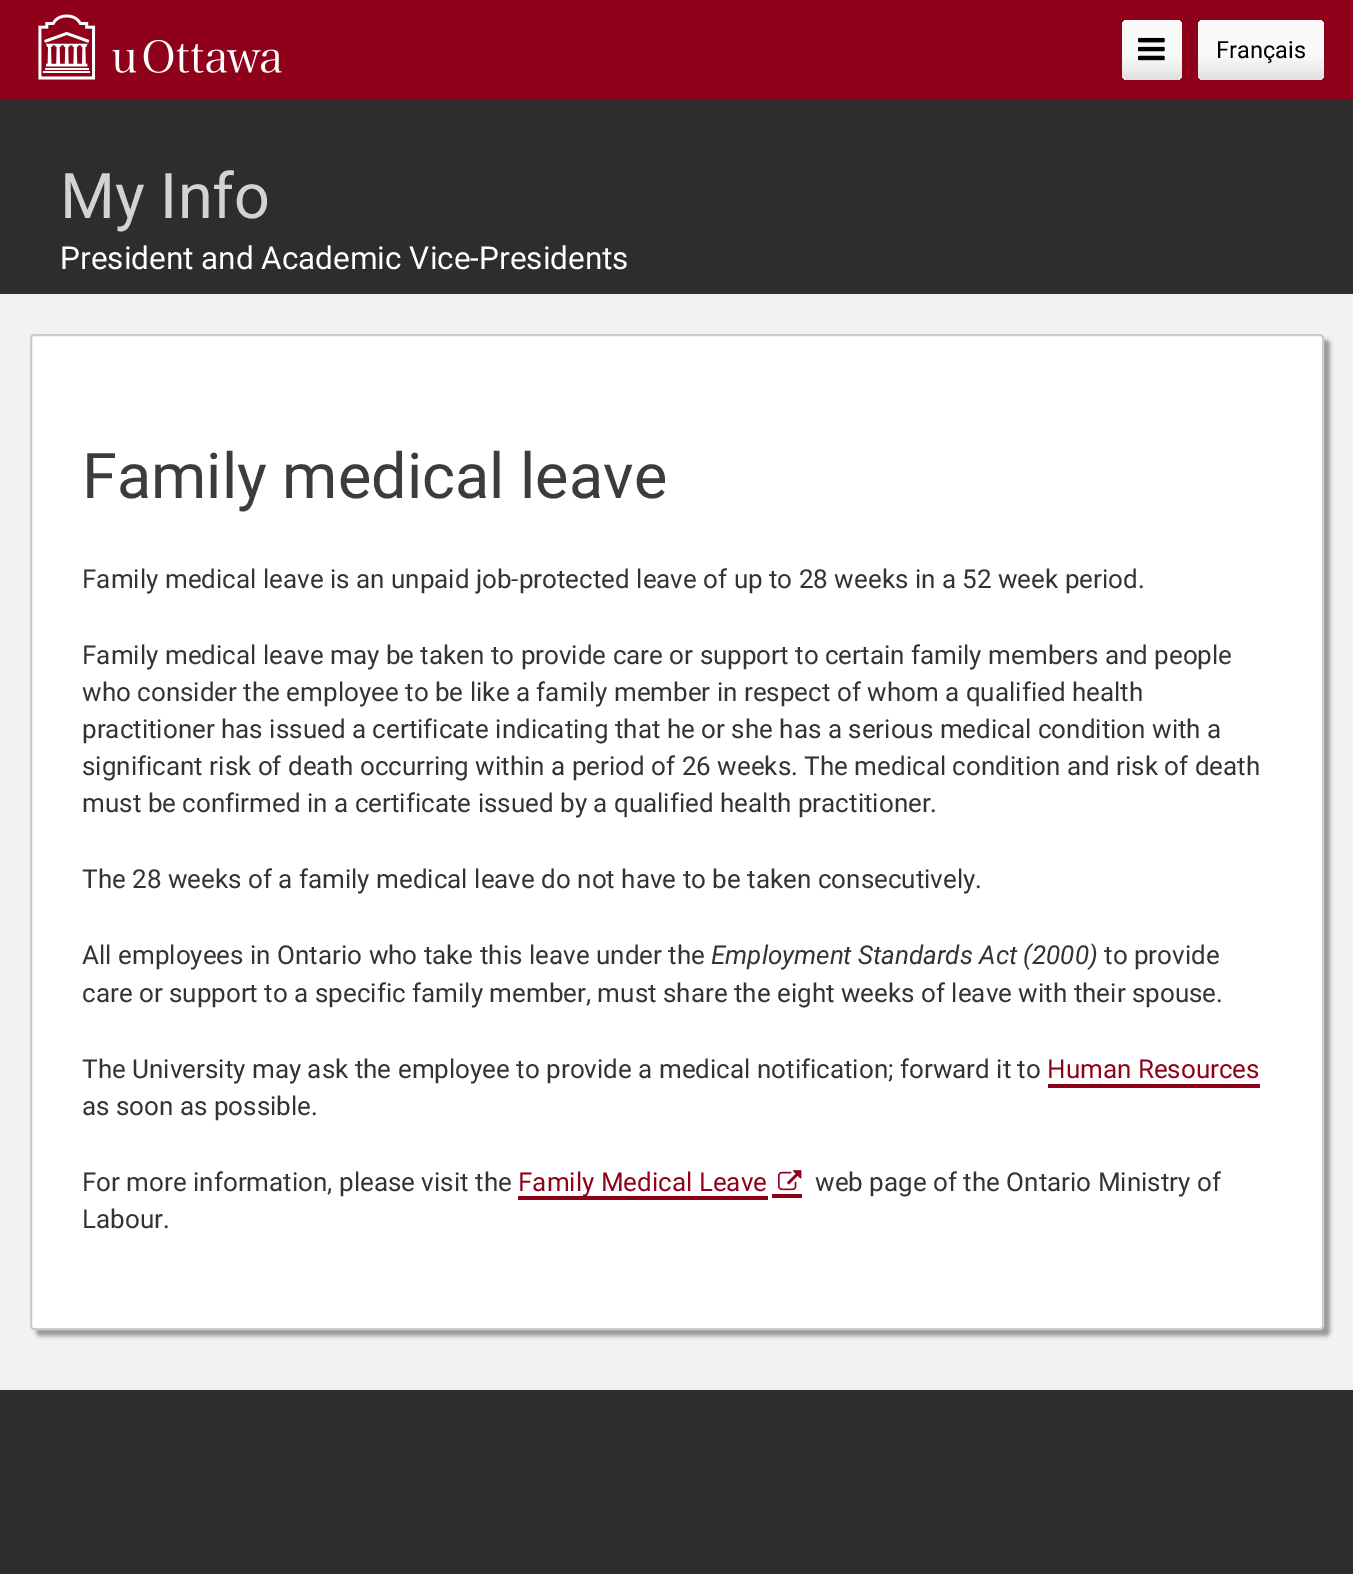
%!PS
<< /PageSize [1353 1574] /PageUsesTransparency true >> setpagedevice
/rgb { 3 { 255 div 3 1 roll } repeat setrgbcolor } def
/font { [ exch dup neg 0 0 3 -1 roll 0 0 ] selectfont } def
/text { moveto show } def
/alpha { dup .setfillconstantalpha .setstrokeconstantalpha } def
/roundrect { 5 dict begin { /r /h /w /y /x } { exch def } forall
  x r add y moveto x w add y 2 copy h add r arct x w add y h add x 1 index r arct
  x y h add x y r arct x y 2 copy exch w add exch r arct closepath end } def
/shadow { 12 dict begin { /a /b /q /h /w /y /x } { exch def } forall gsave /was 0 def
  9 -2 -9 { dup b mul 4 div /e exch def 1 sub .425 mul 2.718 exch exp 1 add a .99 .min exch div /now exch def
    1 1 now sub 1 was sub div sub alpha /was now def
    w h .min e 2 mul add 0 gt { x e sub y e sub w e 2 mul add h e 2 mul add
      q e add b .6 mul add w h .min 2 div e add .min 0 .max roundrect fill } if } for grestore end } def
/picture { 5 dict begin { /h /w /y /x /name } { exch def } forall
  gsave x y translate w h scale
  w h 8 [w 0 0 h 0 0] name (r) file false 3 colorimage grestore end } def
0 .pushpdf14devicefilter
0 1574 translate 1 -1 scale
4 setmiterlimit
242 242 242 rgb
0 0 1353 1574 rectfill
143 0 26 rgb
0 0 1353 100 rectfill
(img_01.rgb) 38 14 244 66 picture
gsave 1122 20 60 60 6 roundrect clip newpath
<< /ShadingType 2 /ColorSpace /DeviceRGB /Coords [1152 20 1152 80] /Extend [true true] /Function << /FunctionType 3 /Domain [0 1] /Functions [<< /FunctionType 2 /Domain [0 1] /C0 [0.98 0.98 0.98] /C1 [0.98 0.98 0.98] /N 1 >> << /FunctionType 2 /Domain [0 1] /C0 [0.98 0.98 0.98] /C1 [0.878 0.878 0.878] /N 1 >>] /Bounds [0.59] /Encode [0 1 0 1] >> >> shfill grestore
(img_02.rgb) 1138 37 27 24 picture
gsave 1198 20 126 60 6 roundrect clip newpath
<< /ShadingType 2 /ColorSpace /DeviceRGB /Coords [1261 20 1261 80] /Extend [true true] /Function << /FunctionType 3 /Domain [0 1] /Functions [<< /FunctionType 2 /Domain [0 1] /C0 [0.98 0.98 0.98] /C1 [0.98 0.98 0.98] /N 1 >> << /FunctionType 2 /Domain [0 1] /C0 [0.98 0.98 0.98] /C1 [0.878 0.878 0.878] /N 1 >>] /Bounds [0.59] /Encode [0 1 0 1] >> >> shfill grestore
45 45 45 rgb
0 100 1353 194 rectfill
153 153 153 rgb
36 340 1294 996 4 2 1 shadow
255 255 255 rgb
31 335 1292 994 3 roundrect gsave fill grestore
204 204 204 rgb
2 setlinewidth
stroke
143 0 26 rgb
1048 1084 212 4 rectfill
518 1196 250 4 rectfill
772 1194 30 4 rectfill
(img_03.rgb) 778 1170 24 21 picture
45 45 45 rgb
0 1390 1353 184 rectfill
/Roboto-Regular 23.5 font
0 0 0 rgb
(Français) 1216 58 text
/Roboto-Regular 63 font
211 211 211 rgb
(My Info) 60 218 text
/Roboto-Regular 31.5 font
255 255 255 rgb
(President and Academic Vice-Presidents) 60 269 text
/Roboto-Regular 63 font
60 60 60 rgb
(Family medical leave) 82 498 text
/Roboto-Regular 26 font
51 51 51 rgb
(Family medical leave is an unpaid job-protected leave of up to 28 weeks in a 52 week period.) 82 588 text
(Family medical leave may be taken to provide care or support to certain family members and people) 82 664 text
(who consider the employee to be like a family member in respect of whom a qualified health) 82 701 text
(practitioner has issued a certificate indicating that he or she has a serious medical condition with a) 82 738 text
(significant risk of death occurring within a period of 26 weeks. The medical condition and risk of death) 82 775 text
(must be confirmed in a certificate issued by a qualified health practitioner.) 82 812 text
(The 28 weeks of a family medical leave do not have to be taken consecutively.) 82 888 text
(All employees in Ontario who take this leave under the) 82 964 text
/Roboto-Italic 26 font
(Employment Standards Act \(2000\)) 711 964 text
/Roboto-Regular 26 font
(to provide) 1104 964 text
(care or support to a specific family member, must share the eight weeks of leave with their spouse.) 82 1002 text
(The University may ask the employee to provide a medical notification; forward it to) 82 1078 text
143 0 26 rgb
(Human Resources) 1047 1078 text
51 51 51 rgb
(as soon as possible.) 82 1115 text
(For more information, please visit the) 82 1191 text
143 0 26 rgb
(Family Medical Leave) 518 1191 text
51 51 51 rgb
(web page of the Ontario Ministry of) 815 1191 text
(Labour.) 82 1228 text
.poppdf14devicefilter showpage
